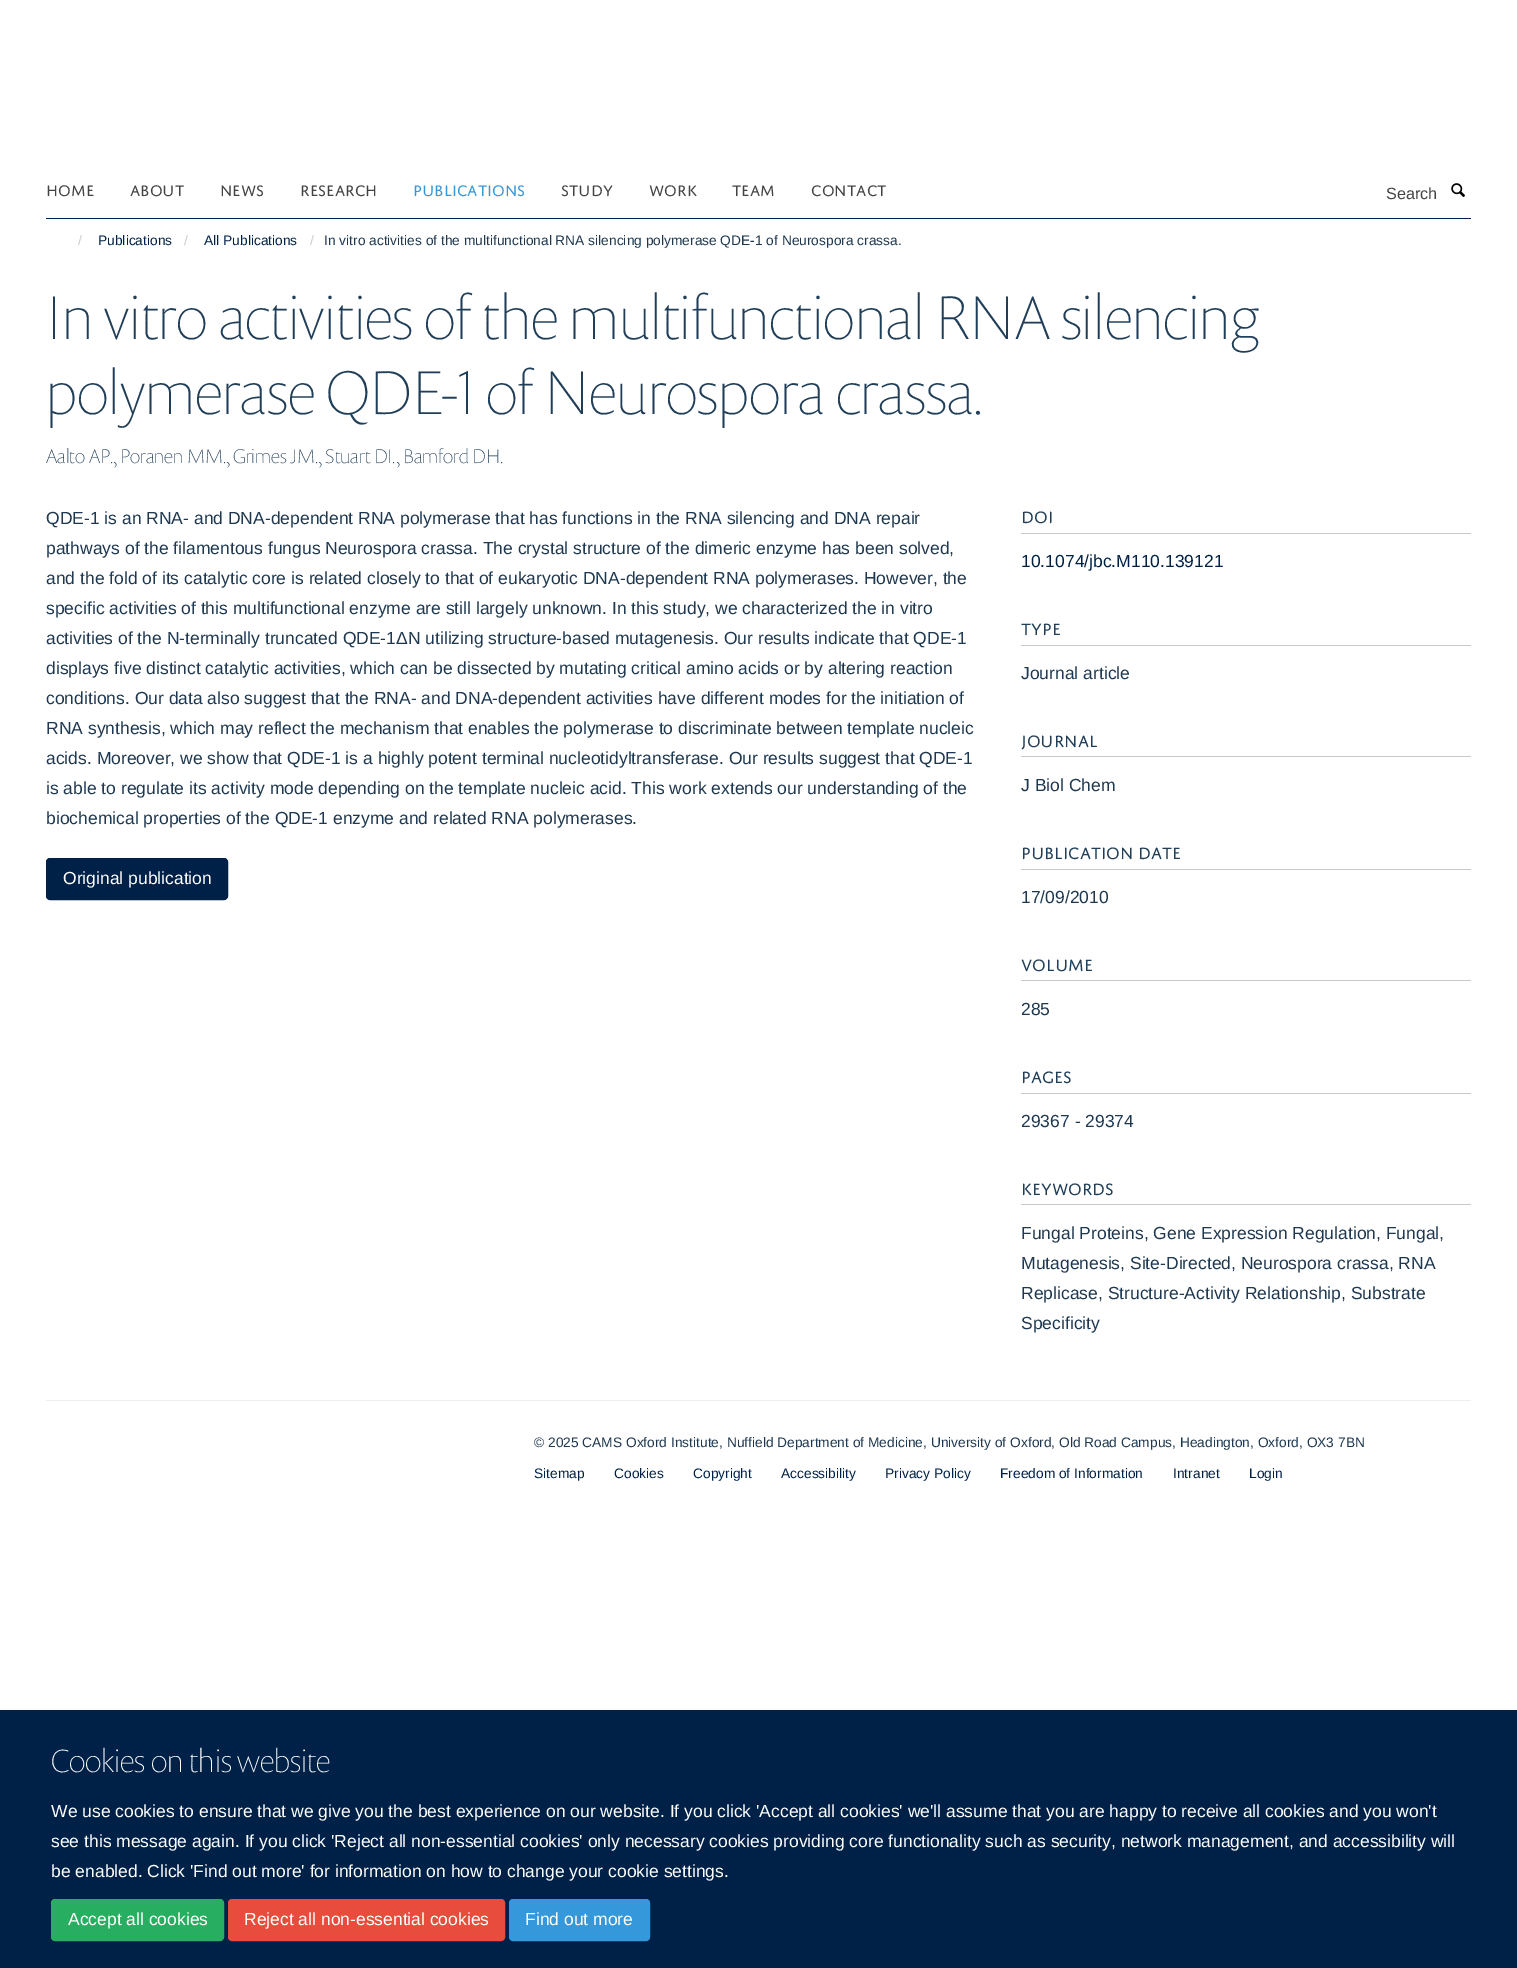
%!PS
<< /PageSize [1517 1968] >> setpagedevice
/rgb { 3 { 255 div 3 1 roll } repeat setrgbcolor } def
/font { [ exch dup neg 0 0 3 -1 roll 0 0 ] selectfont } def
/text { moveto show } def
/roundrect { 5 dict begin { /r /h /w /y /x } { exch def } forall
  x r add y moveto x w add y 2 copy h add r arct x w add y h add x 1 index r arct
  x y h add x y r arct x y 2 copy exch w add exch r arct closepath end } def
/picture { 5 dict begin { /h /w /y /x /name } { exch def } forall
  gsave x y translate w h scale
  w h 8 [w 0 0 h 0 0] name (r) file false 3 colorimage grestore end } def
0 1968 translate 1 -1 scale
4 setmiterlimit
255 255 255 rgb
0 0 1517 1968 rectfill
0 33 71 rgb
46 218 1425 1 rectfill
(img_01.rgb) 1451 183 14 14 picture
46.5 858.5 181 41 3.5 roundrect gsave fill grestore
stroke
198 202 207 rgb
1021 533 450 1 rectfill
1021 645 450 1 rectfill
1021 756 450 1 rectfill
1021 869 450 1 rectfill
1021 980 450 1 rectfill
1021 1093 450 1 rectfill
1021 1204 450 1 rectfill
238 238 238 rgb
46 1400 1425 1 rectfill
0 33 71 rgb
0 1710 1517 258 rectfill
39 174 96 rgb
51.5 1899.5 172 41 3.5 roundrect gsave fill grestore
stroke
231 76 60 rgb
228.5 1899.5 276 41 3.5 roundrect gsave fill grestore
stroke
52 152 219 rgb
509.5 1899.5 140 41 3.5 roundrect gsave fill grestore
stroke
/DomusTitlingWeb-Regular 16.25 font
68 68 68 rgb
(HOME) 46 196 text
(ABOUT) 130 196 text
(NEWS) 220 196 text
(RESEARCH) 300 196 text
52 152 219 rgb
(PUBLICATIONS) 413 196 text
68 68 68 rgb
(STUDY) 561 196 text
(WORK) 649 196 text
(TEAM) 732 196 text
(CONTACT) 811 196 text
/LiberationSans-Regular 16.25 font
(Search) 1386 199 text
/LiberationSans-Regular 13.75 font
204 204 204 rgb
(/) 78 245 text
0 33 71 rgb
(Publications) 98 245 text
204 204 204 rgb
(/) 184 245 text
0 33 71 rgb
(All Publications) 204 245 text
204 204 204 rgb
(/) 310 245 text
29 56 80 rgb
(In vitro activities of the multifunctional RNA silencing polymerase QDE-1 of Neurospora crassa.) 324 245 text
/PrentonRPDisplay-Thin 62.5 font
32 62 88 rgb
(In vitro activities of the multifunctional RNA silencing) 46 339 text
(polymerase QDE-1 of Neurospora crassa.) 46 414 text
/PrentonRPDisplay-Thin 20 font
(Aalto AP., Poranen MM., Grimes JM., Stuart DI., Bamford DH.) 46 463 text
/LiberationSans-Regular 17.5 font
29 56 80 rgb
(QDE-1 is an RNA- and DNA-dependent RNA polymerase that has functions in the RNA silencing and DNA repair) 46 524 text
(pathways of the filamentous fungus Neurospora crassa. The crystal structure of the dimeric enzyme has been solved,) 46 554 text
(and the fold of its catalytic core is related closely to that of eukaryotic DNA-dependent RNA polymerases. However, the) 46 584 text
(specific activities of this multifunctional enzyme are still largely unknown. In this study, we characterized the in vitro) 46 614 text
(activities of the N-terminally truncated QDE-1ΔN utilizing structure-based mutagenesis. Our results indicate that QDE-1) 46 644 text
(displays five distinct catalytic activities, which can be dissected by mutating critical amino acids or by altering reaction) 46 674 text
(conditions. Our data also suggest that the RNA- and DNA-dependent activities have different modes for the initiation of) 46 704 text
(RNA synthesis, which may reflect the mechanism that enables the polymerase to discriminate between template nucleic) 46 734 text
(acids. Moreover, we show that QDE-1 is a highly potent terminal nucleotidyltransferase. Our results suggest that QDE-1) 46 764 text
(is able to regulate its activity mode depending on the template nucleic acid. This work extends our understanding of the) 46 794 text
(biochemical properties of the QDE-1 enzyme and related RNA polymerases.) 46 824 text
255 255 255 rgb
(Original publication) 63 884 text
/DomusTitlingWeb-Regular 17.5 font
32 62 88 rgb
(DOI) 1021 523 text
/LiberationSans-Regular 17.5 font
0 33 71 rgb
(10.1074/jbc.M110.139121) 1021 567 text
/DomusTitlingWeb-Regular 17.5 font
32 62 88 rgb
(TYPE) 1021 635 text
/LiberationSans-Regular 17.5 font
29 56 80 rgb
(Journal article) 1021 679 text
/DomusTitlingWeb-Regular 17.5 font
32 62 88 rgb
(JOURNAL) 1021 747 text
/LiberationSans-Regular 17.5 font
29 56 80 rgb
(J Biol Chem) 1021 791 text
/DomusTitlingWeb-Regular 17.5 font
32 62 88 rgb
(PUBLICATION DATE) 1021 859 text
/LiberationSans-Regular 17.5 font
29 56 80 rgb
(17/09/2010) 1021 903 text
/DomusTitlingWeb-Regular 17.5 font
32 62 88 rgb
(VOLUME) 1021 971 text
/LiberationSans-Regular 17.5 font
29 56 80 rgb
(285) 1021 1015 text
/DomusTitlingWeb-Regular 17.5 font
32 62 88 rgb
(PAGES) 1021 1083 text
/LiberationSans-Regular 17.5 font
29 56 80 rgb
(29367 - 29374) 1021 1127 text
/DomusTitlingWeb-Regular 17.5 font
32 62 88 rgb
(KEYWORDS) 1021 1195 text
/LiberationSans-Regular 17.5 font
29 56 80 rgb
(Fungal Proteins, Gene Expression Regulation, Fungal,) 1021 1239 text
(Mutagenesis, Site-Directed, Neurospora crassa, RNA) 1021 1269 text
(Replicase, Structure-Activity Relationship, Substrate) 1021 1299 text
(Specificity) 1021 1329 text
/LiberationSans-Regular 13.75 font
(© 2025 CAMS Oxford Institute, Nuffield Department of Medicine, University of Oxford, Old Road Campus, Headington, Oxford, OX3 7BN) 534 1447 text
0 33 71 rgb
(Sitemap) 534 1478 text
(Cookies) 614 1478 text
(Copyright) 693 1478 text
(Accessibility) 781 1478 text
(Privacy Policy) 885 1478 text
(Freedom of Information) 1000 1478 text
(Intranet) 1173 1478 text
(Login) 1249 1478 text
/PrentonRPDisplay-Thin 32.5 font
255 255 255 rgb
(Cookies on this website) 51 1772 text
/LiberationSans-Regular 17.5 font
(We use cookies to ensure that we give you the best experience on our website. If you click 'Accept all cookies' we'll assume that you are happy to receive all cookies and you won't) 51 1817 text
(see this message again. If you click 'Reject all non-essential cookies' only necessary cookies providing core functionality such as security, network management, and accessibility will) 51 1847 text
(be enabled. Click 'Find out more' for information on how to change your cookie settings.) 51 1877 text
(Accept all cookies) 68 1925 text
(Reject all non-essential cookies) 244 1925 text
(Find out more) 525 1925 text
showpage
